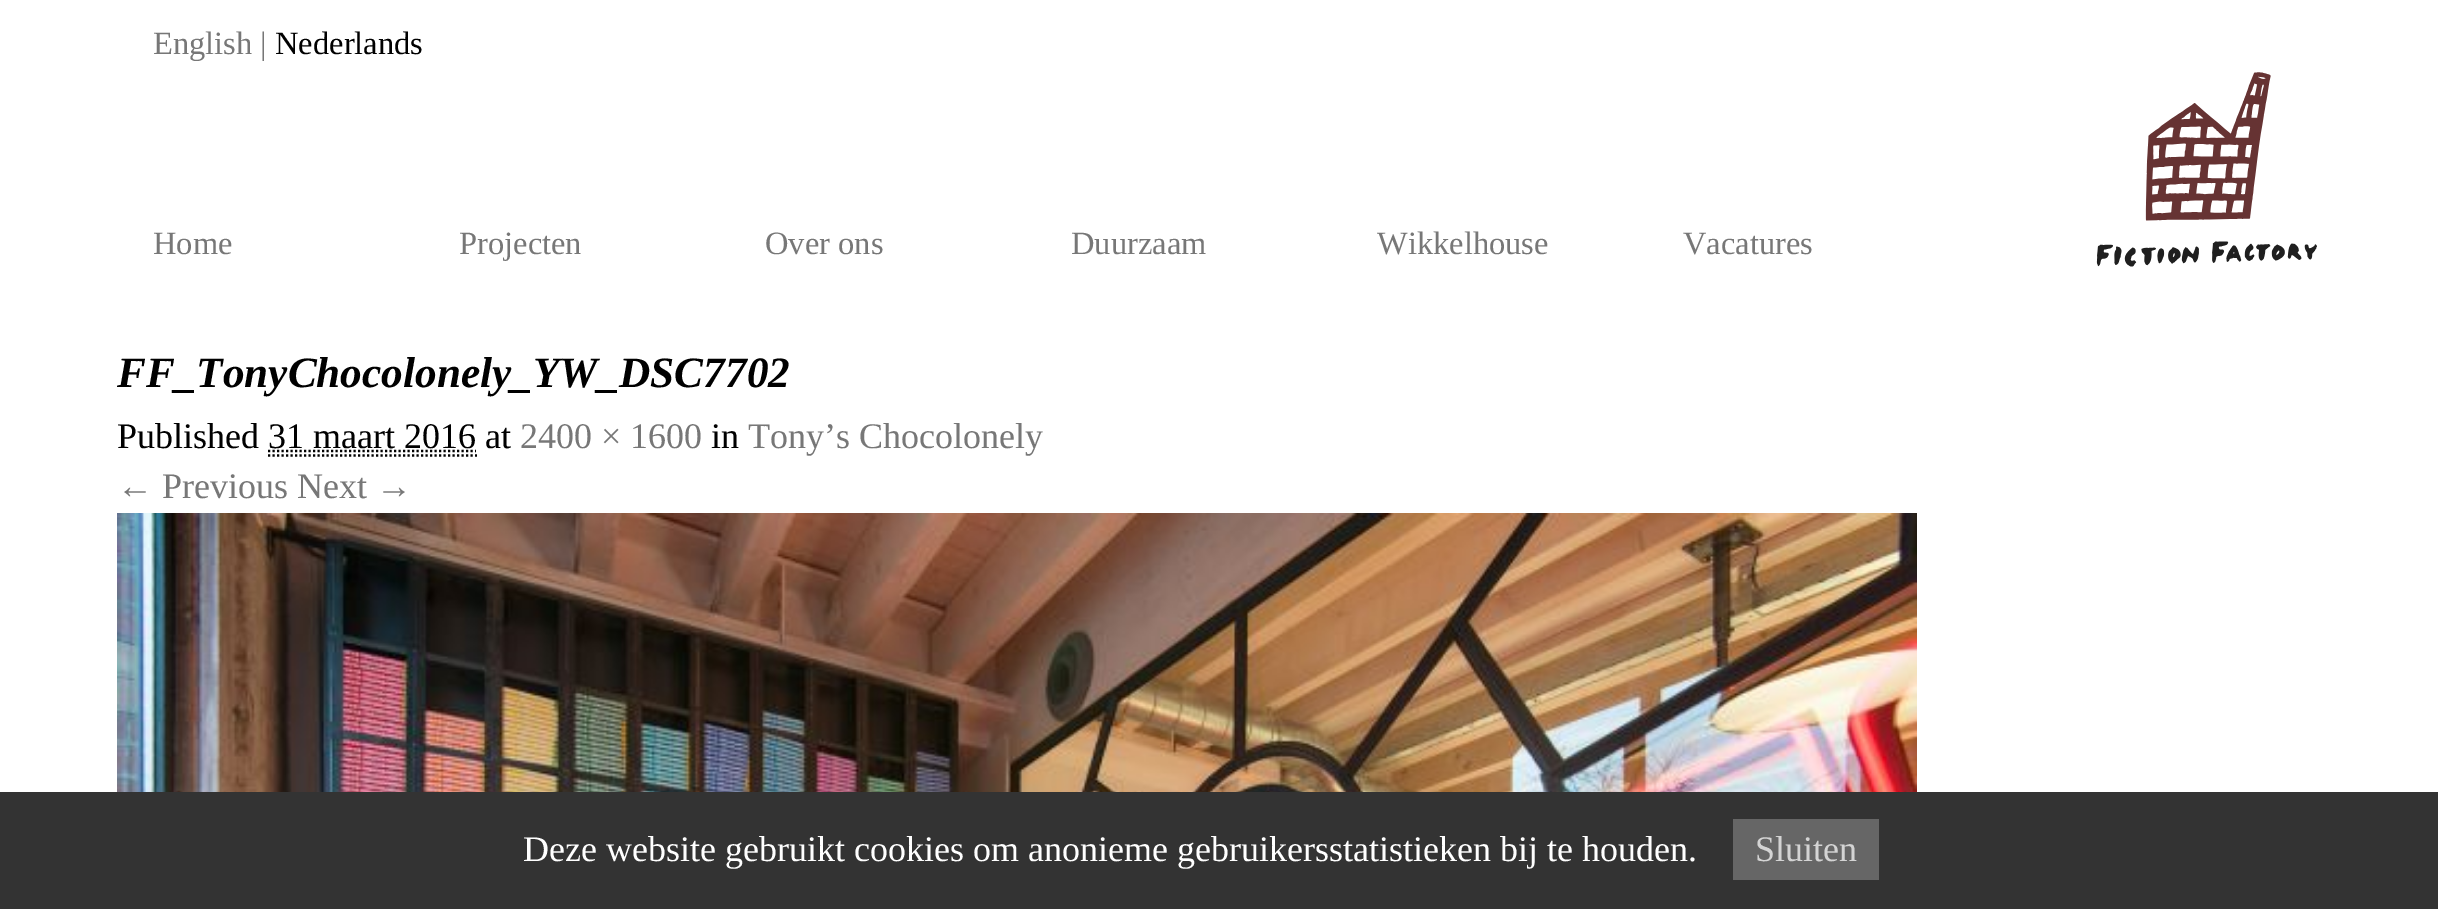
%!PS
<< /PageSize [2438 909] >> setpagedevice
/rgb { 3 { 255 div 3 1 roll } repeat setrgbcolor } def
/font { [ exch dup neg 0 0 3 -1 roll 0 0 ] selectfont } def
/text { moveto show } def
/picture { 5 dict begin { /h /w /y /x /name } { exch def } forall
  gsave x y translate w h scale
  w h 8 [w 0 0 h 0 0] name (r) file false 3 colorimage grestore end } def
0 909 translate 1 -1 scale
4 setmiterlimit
255 255 255 rgb
0 0 2438 909 rectfill
(img_01.rgb) 2096 72 221 195 picture
0 0 0 rgb
2.2 setlinewidth
[2.25 2.25] 0 setdash
268 451 moveto 208 0 rlineto stroke
268 455.5 moveto 209 0 rlineto stroke
(img_02.rgb) 117 513 1800 279 picture
51 51 51 rgb
0 792 2438 117 rectfill
102 102 102 rgb
1733 819 146 61 rectfill
/LiberationSerif-Regular 32.5 font
119 119 119 rgb
(English |) 153 54 text
0 0 0 rgb
(Nederlands) 275 54 text
119 119 119 rgb
(Home) 153 254 text
(Projecten) 459 254 text
(Over ons) 765 254 text
(Duurzaam) 1071 254 text
(Wikkelhouse) 1377 254 text
(Vacatures) 1683 254 text
/LiberationSerif-BoldItalic 43.25 font
0 0 0 rgb
(FF_TonyChocolonely_YW_DSC7702) 117 387 text
/LiberationSerif-Regular 36 font
(Published 31 maart 2016 at) 117 448 text
119 119 119 rgb
(2400 × 1600) 520 448 text
0 0 0 rgb
(in) 711 448 text
119 119 119 rgb
(Tony’s Chocolonely) 748 448 text
(← Previous Next →) 117 498 text
255 255 255 rgb
(Deze website gebruikt cookies om anonieme gebruikersstatistieken bij te houden.) 523 861 text
212 212 212 rgb
(Sluiten) 1755 861 text
showpage
